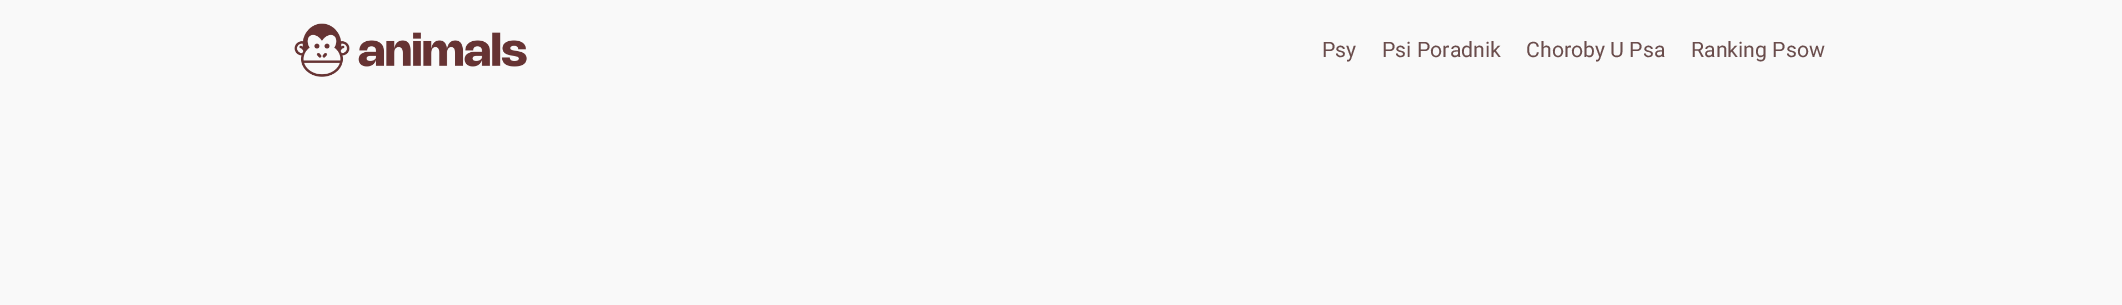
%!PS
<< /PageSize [2122 305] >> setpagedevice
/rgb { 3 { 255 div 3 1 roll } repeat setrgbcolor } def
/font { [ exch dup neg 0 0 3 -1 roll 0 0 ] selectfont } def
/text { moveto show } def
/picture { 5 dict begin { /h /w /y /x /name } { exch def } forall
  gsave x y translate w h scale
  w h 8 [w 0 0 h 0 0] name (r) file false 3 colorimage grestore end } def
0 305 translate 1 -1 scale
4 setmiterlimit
249 249 249 rgb
0 0 2122 305 rectfill
(img_01.rgb) 294 23 233 54 picture
/Roboto-Regular 21.25 font
106 77 76 rgb
(Psy) 1322 57 text
(Psi Poradnik) 1382 57 text
(Choroby U Psa) 1526 57 text
(Ranking Psow) 1691 57 text
showpage
